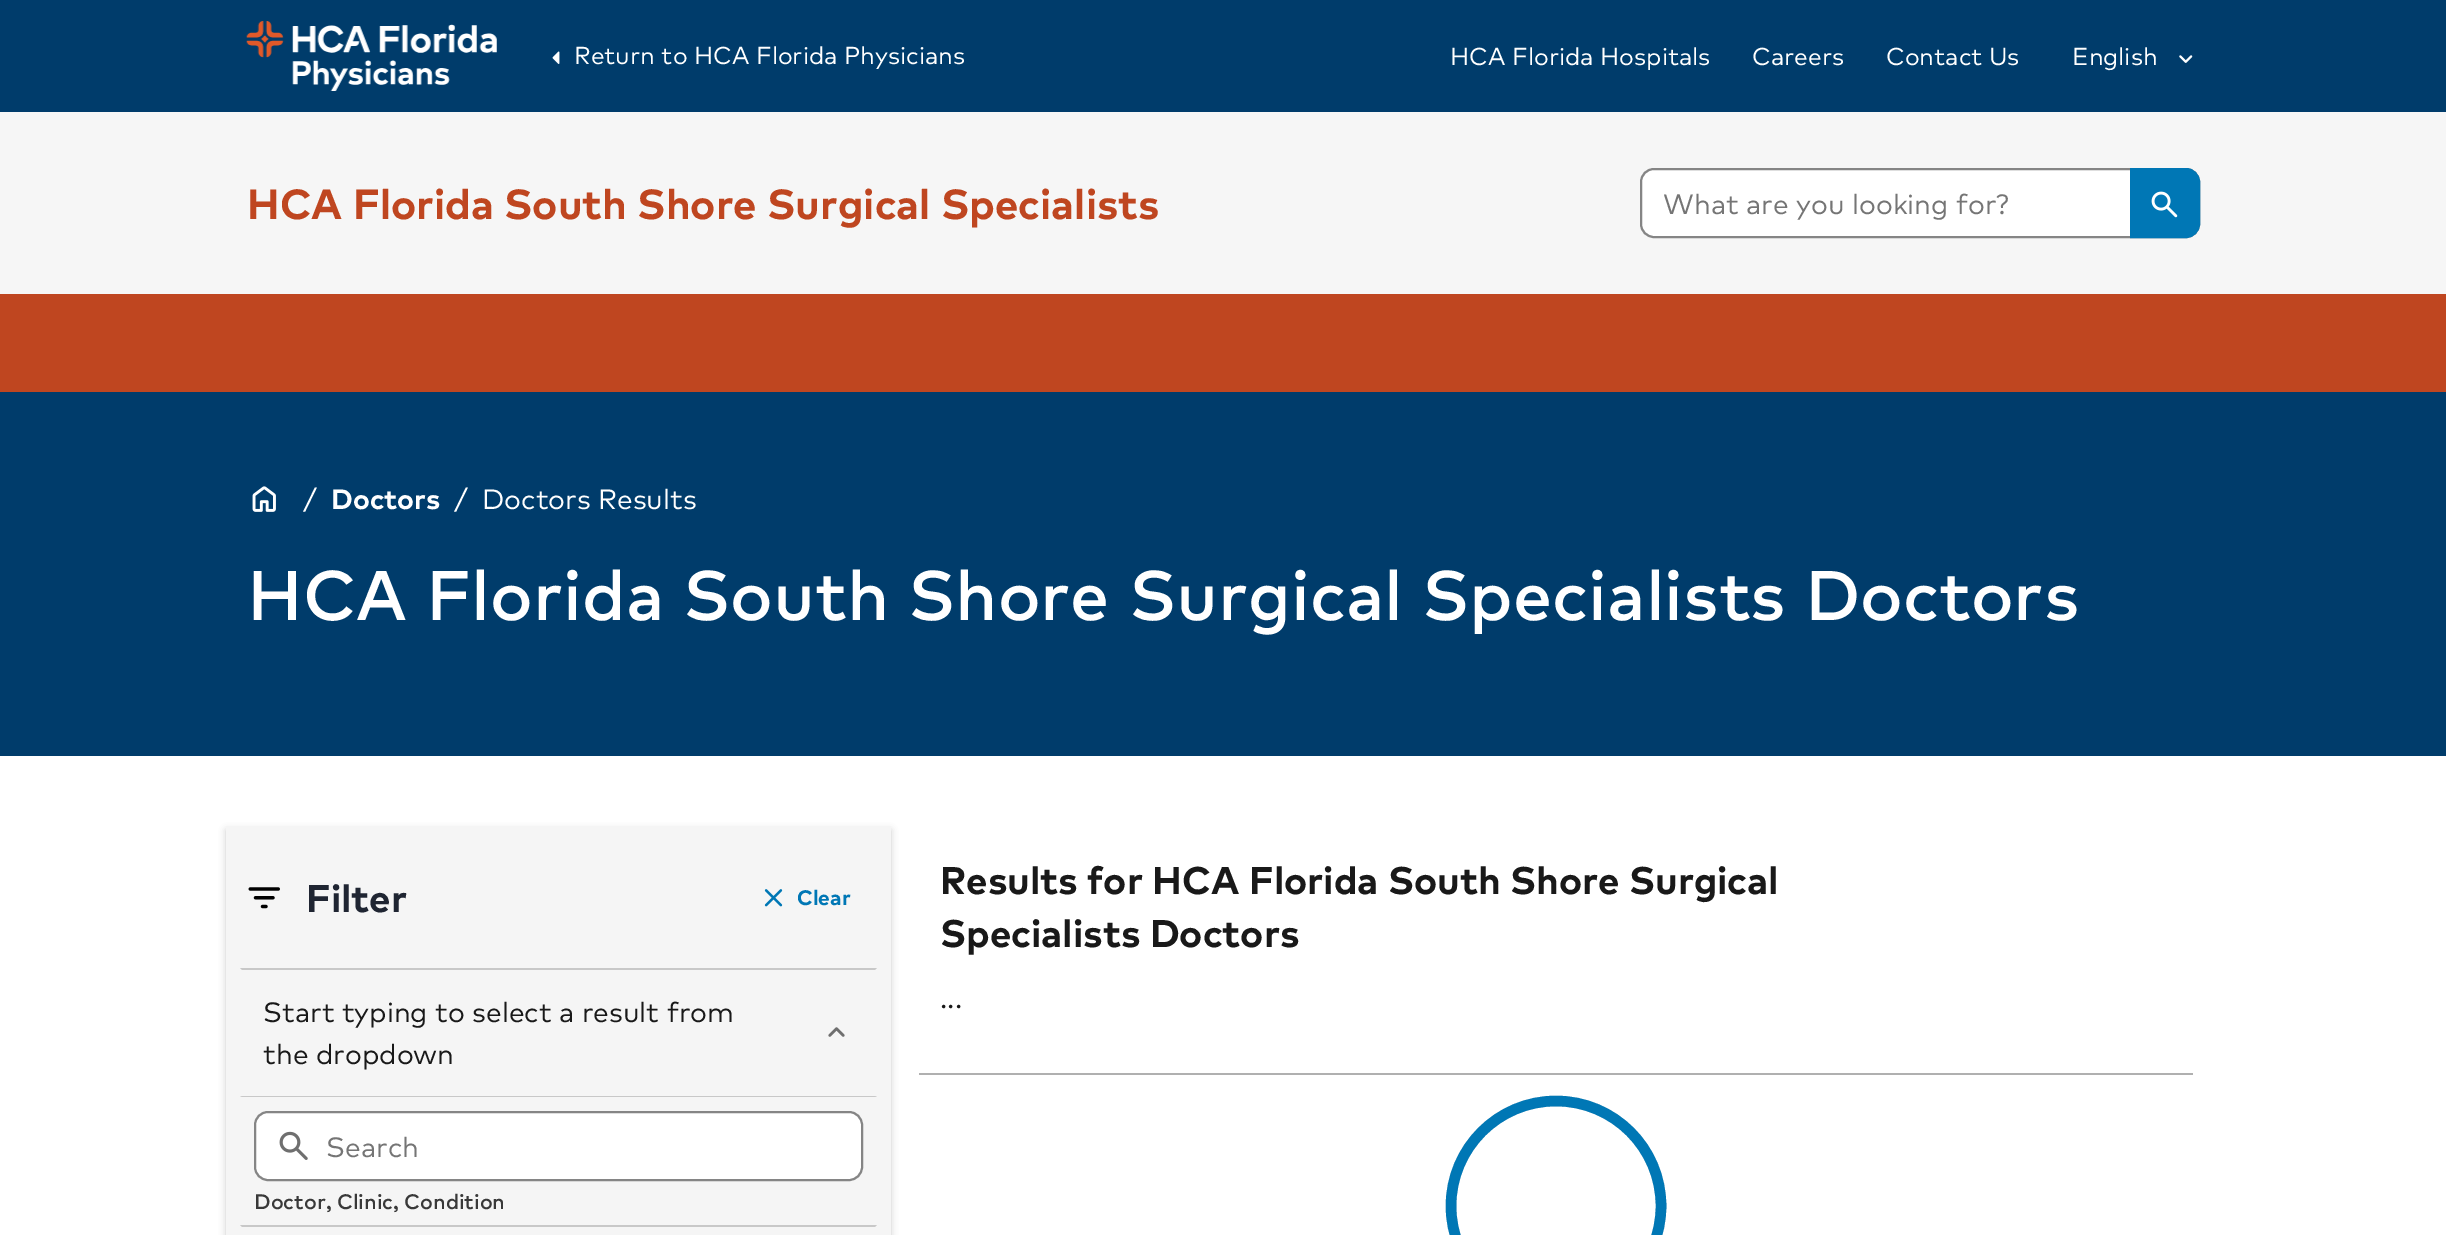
%!PS
<< /PageSize [2446 1235] /PageUsesTransparency true >> setpagedevice
/rgb { 3 { 255 div 3 1 roll } repeat setrgbcolor } def
/font { [ exch dup neg 0 0 3 -1 roll 0 0 ] selectfont } def
/text { moveto show } def
/alpha { dup .setfillconstantalpha .setstrokeconstantalpha } def
/circle { newpath 0 360 arc closepath } def
/roundrect { 5 dict begin { /r /h /w /y /x } { exch def } forall
  x r add y moveto x w add y 2 copy h add r arct x w add y h add x 1 index r arct
  x y h add x y r arct x y 2 copy exch w add exch r arct closepath end } def
/shadow { 12 dict begin { /a /b /q /h /w /y /x } { exch def } forall gsave /was 0 def
  9 -2 -9 { dup b mul 4 div /e exch def 1 sub .425 mul 2.718 exch exp 1 add a .99 .min exch div /now exch def
    1 1 now sub 1 was sub div sub alpha /was now def
    w h .min e 2 mul add 0 gt { x e sub y e sub w e 2 mul add h e 2 mul add
      q e add b .6 mul add w h .min 2 div e add .min 0 .max roundrect fill } if } for grestore end } def
/picture { 5 dict begin { /h /w /y /x /name } { exch def } forall
  gsave x y translate w h scale
  w h 8 [w 0 0 h 0 0] name (r) file false 3 colorimage grestore end } def
0 .pushpdf14devicefilter
0 1235 translate 1 -1 scale
4 setmiterlimit
246 246 246 rgb
0 0 2446 1235 rectfill
0 60 107 rgb
0 0 2446 112 rectfill
(img_01.rgb) 246 21 251 70 picture
(img_02.rgb) 552 51 8 13 picture
(img_03.rgb) 2179 55 14 8 picture
255 255 255 rgb
1641 169 558 68 13 roundrect gsave fill grestore
133 133 133 rgb
2 setlinewidth
stroke
0 119 181 rgb
2132 170 moveto 54 0 rlineto 6.5 0 12 5.5 12 12 rcurveto 0 42 rlineto 0 6.5 -5.5 12 -12 12 rcurveto -54 0 rlineto closepath gsave fill grestore
4 setlinewidth
stroke
(img_04.rgb) 2151 191 27 27 picture
191 70 32 rgb
0 294 2446 98 rectfill
0 60 107 rgb
0 392 2446 364 rectfill
(img_05.rgb) 252 486 24 26 picture
255 255 255 rgb
0 756 2446 479 rectfill
15 15 15 rgb
226 830 665 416 0 3.5 0.2 shadow
245 245 245 rgb
226 826 665 409 rectfill
(img_06.rgb) 248 887 32 22 picture
(img_07.rgb) 764 889 19 18 picture
200 200 200 rgb
240 968 moveto 637 0 rlineto -2 2 rlineto -633 0 rlineto closepath fill
877 1097 moveto -637 0 rlineto 2 -1 rlineto 633 0 rlineto closepath fill
(img_08.rgb) 828 1027 17 10 picture
255 255 255 rgb
255 1112 607 68 13 roundrect gsave fill grestore
133 133 133 rgb
2 setlinewidth
stroke
(img_09.rgb) 279 1131 29 29 picture
200 200 200 rgb
240 1225 moveto 637 0 rlineto -2 2 rlineto -633 0 rlineto closepath fill
176 176 176 rgb
919 1073 1274 2 rectfill
226 226 226 rgb
10.5 setlinewidth
1556 1206 105 circle stroke
0 119 181 rgb
1556 1206 105 circle stroke
/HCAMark-Regular 24.5 font
255 255 255 rgb
(Return to HCA Florida Physicians) 574 64 text
(HCA Florida Hospitals) 1450 65 text
(Careers) 1752 65 text
(Contact Us) 1886 65 text
(English) 2072 65 text
/HCAMark-Bold 42 font
191 70 32 rgb
(HCA Florida South Shore Surgical Specialists) 247 219 text
/HCAMark-Regular 28 font
117 117 117 rgb
(What are you looking for?) 1663 214 text
255 255 255 rgb
(/) 303 509 text
/HCAMark-Bold 28 font
(Doctors) 331 509 text
/HCAMark-Regular 28 font
(/) 454 509 text
(Doctors Results) 482 509 text
/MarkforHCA-Medium 70 font
(HCA Florida South Shore Surgical Specialists Doctors) 247 620 text
/HCAMark-Bold 38.5 font
31 37 50 rgb
(Filter) 306 912 text
/HCAMark-Bold 21 font
0 119 181 rgb
(Clear) 797 905 text
/HCAMark-Regular 28 font
25 25 25 rgb
(Start typing to select a result from) 263 1022 text
(the dropdown) 263 1064 text
117 117 117 rgb
(Search) 326 1157 text
/MarkforHCA-Medium 21 font
57 57 57 rgb
(Doctor, Clinic, Condition) 254 1209 text
/HCAMark-Bold 38.5 font
25 25 25 rgb
(Results for HCA Florida South Shore Surgical) 940 894 text
(Specialists Doctors) 940 947 text
/HCAMark-Regular 28 font
(...) 940 1008 text
.poppdf14devicefilter showpage
